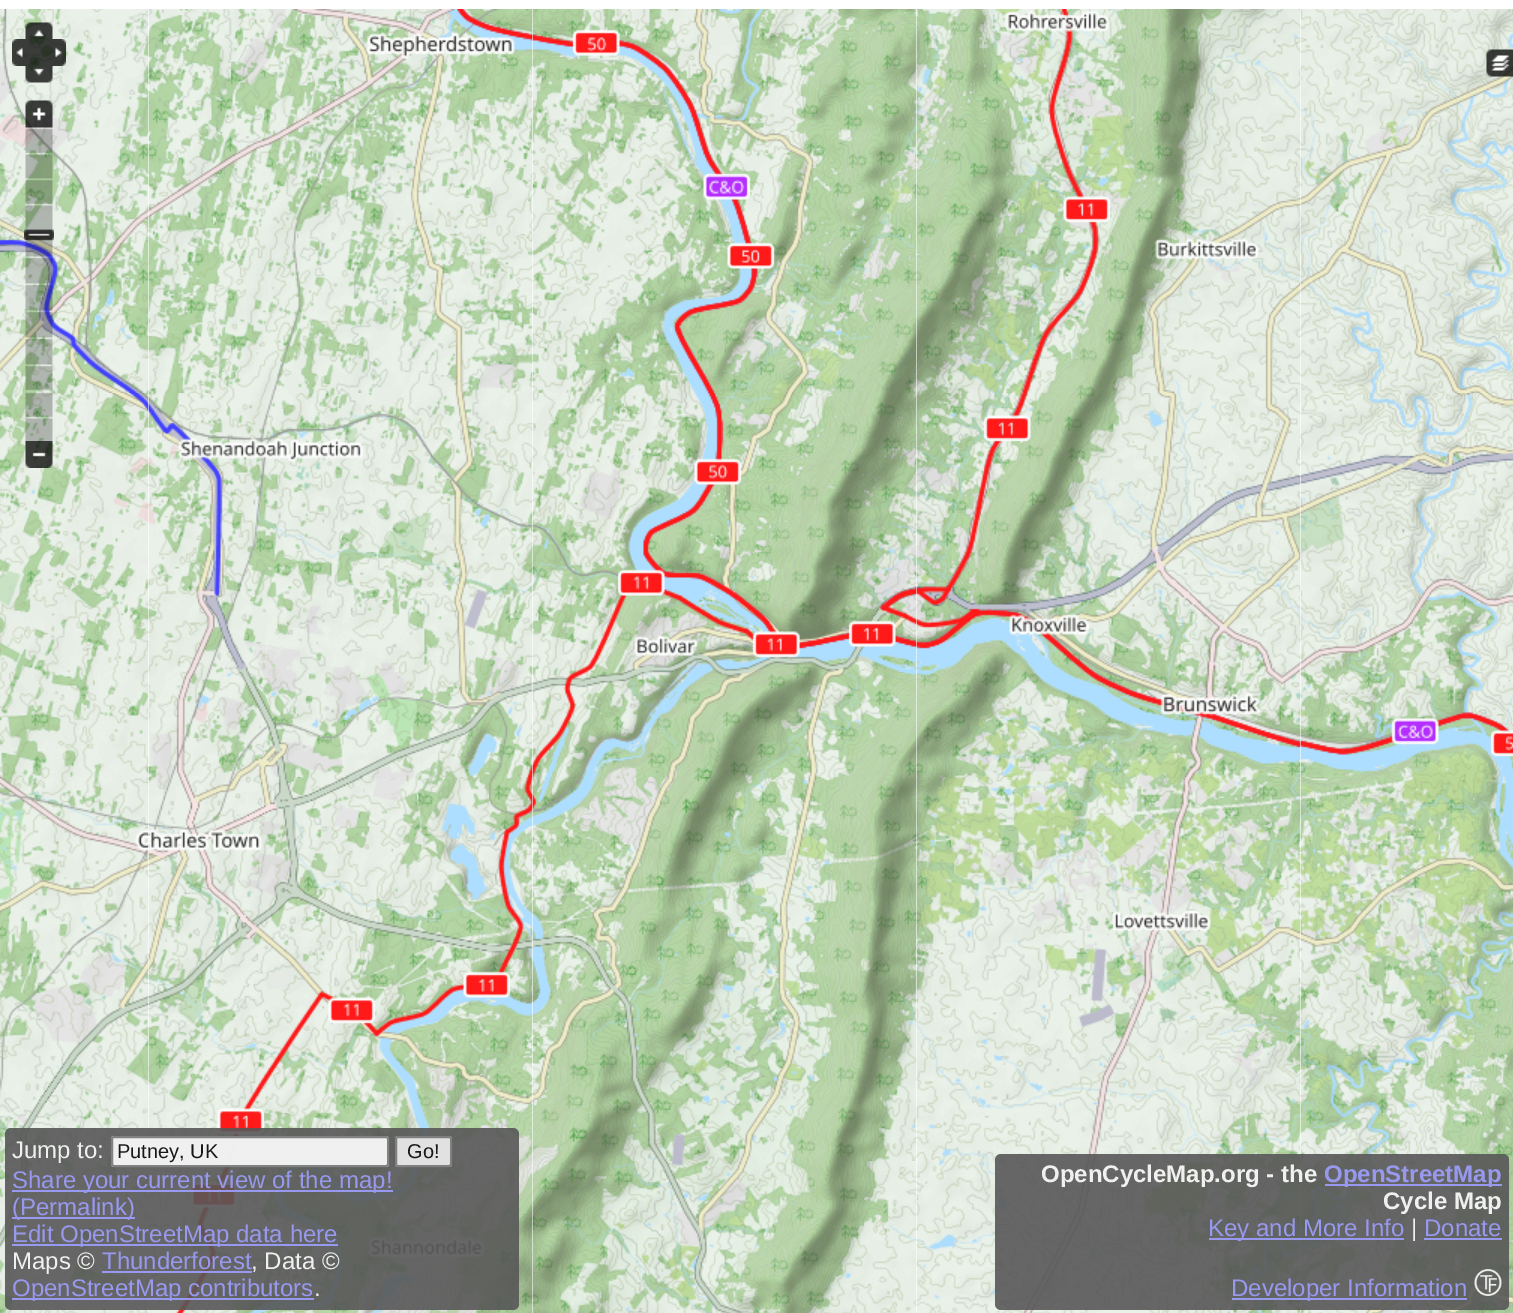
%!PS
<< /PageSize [1513 1313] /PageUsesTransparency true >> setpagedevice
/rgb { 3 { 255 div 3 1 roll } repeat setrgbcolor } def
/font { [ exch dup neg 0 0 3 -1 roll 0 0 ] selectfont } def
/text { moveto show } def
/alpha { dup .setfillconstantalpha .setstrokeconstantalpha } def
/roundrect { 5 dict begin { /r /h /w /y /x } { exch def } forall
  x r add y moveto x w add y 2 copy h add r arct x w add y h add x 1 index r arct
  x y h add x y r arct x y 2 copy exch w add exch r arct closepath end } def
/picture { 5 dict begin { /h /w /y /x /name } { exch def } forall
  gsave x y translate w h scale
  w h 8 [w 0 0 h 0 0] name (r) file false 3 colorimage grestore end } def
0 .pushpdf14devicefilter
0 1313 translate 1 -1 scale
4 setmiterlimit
255 255 255 rgb
0 0 1513 1313 rectfill
(img_11.rgb) 0 777 149 384 picture
(img_12.rgb) 148 777 385 384 picture
(img_16.rgb) 0 1161 149 152 picture
(img_17.rgb) 148 1161 385 152 picture
0.9 alpha
87 87 87 rgb
5 1128 514 182 6 roundrect fill
255 255 255 rgb
111 1136 278 31 3 roundrect fill
118 118 118 rgb
2 setlinewidth
112 1137 276 29 2 roundrect stroke
239 239 239 rgb
395 1136 57 31 3 roundrect fill
118 118 118 rgb
396 1137 55 29 2 roundrect stroke
158 158 255 rgb
12 1190 381 2 rectfill
12 1217 123 2 rectfill
12 1244 326 2 rectfill
102 1271 150 2 rectfill
12 1298 302 2 rectfill
1 alpha
(img_04.rgb) 916 9 385 384 picture
(img_03.rgb) 532 9 385 384 picture
(img_02.rgb) 148 9 385 384 picture
(img_01.rgb) 0 9 149 384 picture
(img_05.rgb) 1300 9 213 384 picture
(img_07.rgb) 148 393 385 384 picture
(img_06.rgb) 0 393 149 384 picture
(img_08.rgb) 532 393 385 384 picture
(img_09.rgb) 916 393 385 384 picture
(img_10.rgb) 1300 393 213 384 picture
(img_13.rgb) 532 777 385 384 picture
(img_14.rgb) 916 777 385 384 picture
(img_15.rgb) 1300 777 213 384 picture
(img_18.rgb) 532 1161 385 152 picture
(img_19.rgb) 916 1161 385 152 picture
(img_20.rgb) 1300 1161 213 152 picture
(img_21.rgb) 25 22 28 17 picture
(img_22.rgb) 12 39 27 27 picture
(img_23.rgb) 39 39 27 27 picture
(img_24.rgb) 25 66 28 17 picture
(img_25.rgb) 25 100 28 28 picture
(img_26.rgb) 25 128 28 313 picture
(img_27.rgb) 24 229 30 12 picture
(img_28.rgb) 25 441 28 27 picture
(img_29.rgb) 1486 49 27 28 picture
0.9 alpha
87 87 87 rgb
995 1154 514 156 6 roundrect fill
158 158 255 rgb
1325 1184 177 2 rectfill
1209 1238 195 2 rectfill
1424 1238 78 2 rectfill
1232 1298 235 2 rectfill
1 alpha
(img_30.rgb) 1474 1269 28 27 picture
/LiberationSans-Regular 24 font
239 240 239 rgb
(Jump to:) 12 1158 text
/LiberationSans-Regular 20 font
24 24 24 rgb
(Putney, UK) 117 1158 text
(Go!) 407 1158 text
/LiberationSans-Regular 24 font
152 152 239 rgb
(Share your current view of the map!) 12 1188 text
(\(Permalink\)) 12 1215 text
(Edit OpenStreetMap data here) 12 1242 text
239 240 239 rgb
(Maps ©) 12 1269 text
152 152 239 rgb
(Thunderforest) 102 1269 text
239 240 239 rgb
(, Data ©) 251 1269 text
152 152 239 rgb
(OpenStreetMap contributors) 12 1296 text
239 240 239 rgb
(.) 314 1296 text
/LiberationSans-Bold 24 font
(OpenCycleMap.org - the) 1041 1182 text
152 152 239 rgb
(OpenStreetMap) 1324 1182 text
239 240 239 rgb
(Cycle Map) 1383 1209 text
/LiberationSans-Regular 24 font
152 152 239 rgb
(Key and More Info) 1208 1236 text
239 240 239 rgb
(|) 1411 1236 text
152 152 239 rgb
(Donate) 1424 1236 text
(Developer Information) 1231 1296 text
.poppdf14devicefilter showpage
